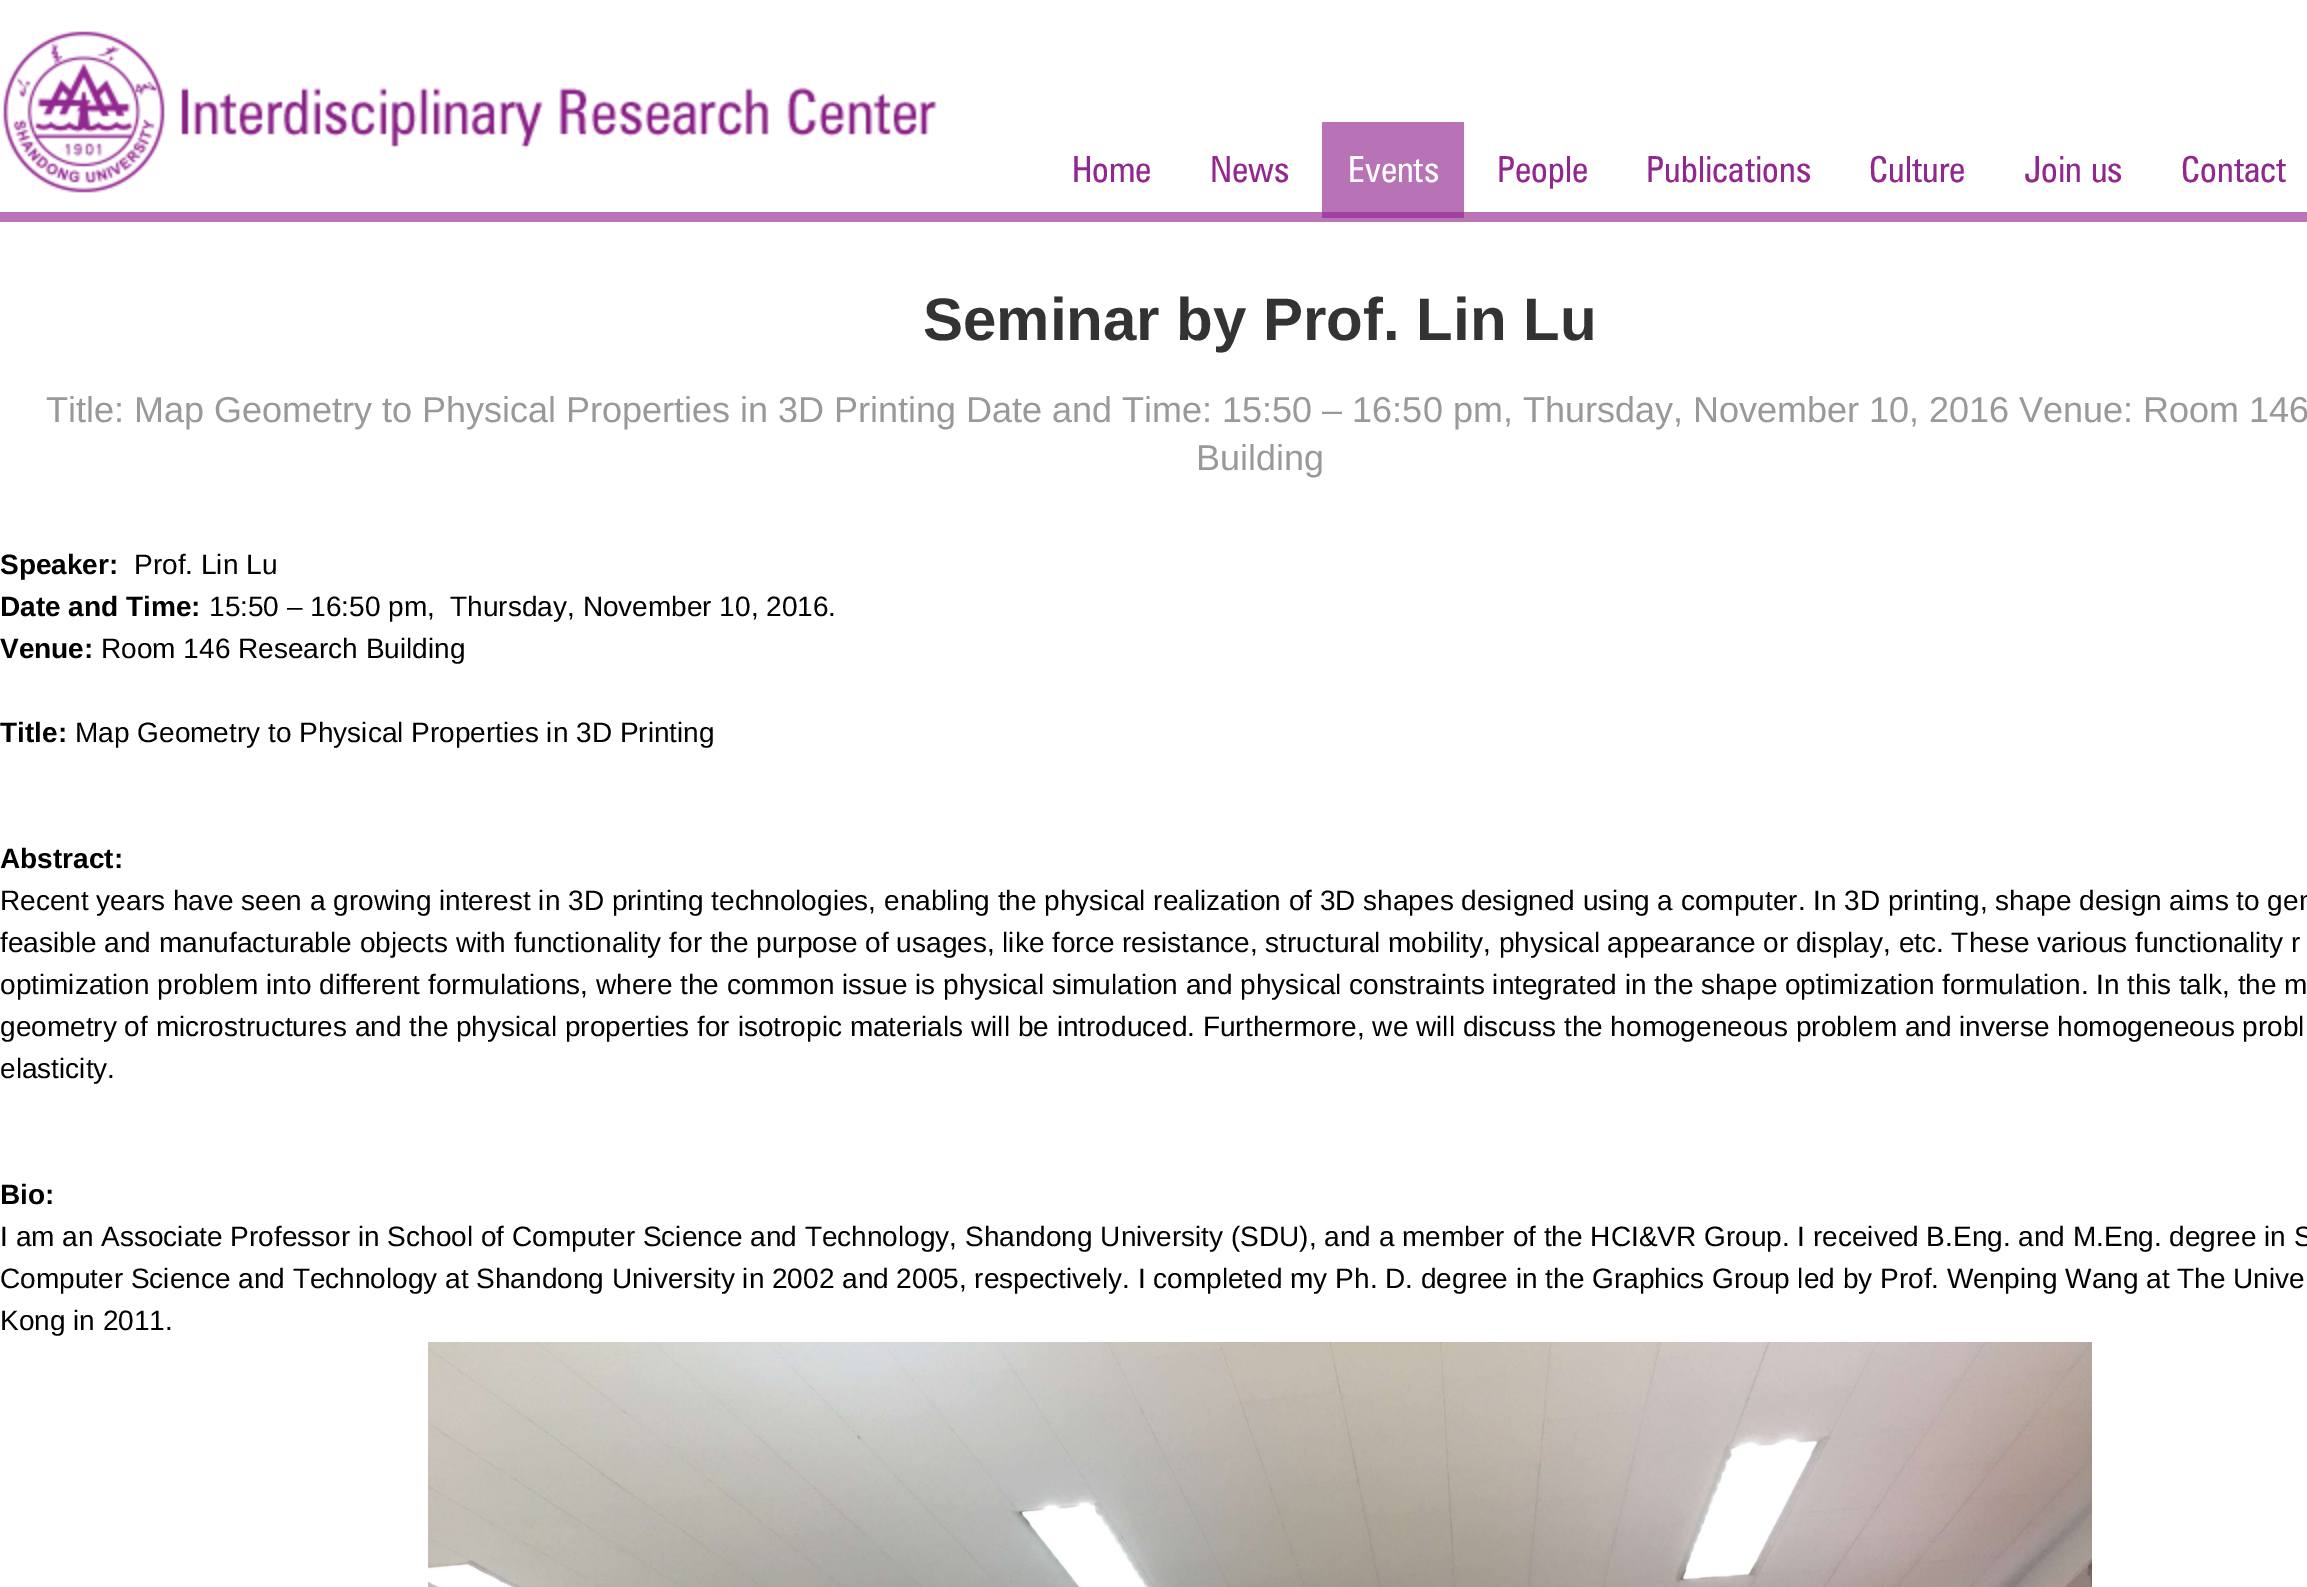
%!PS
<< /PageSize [2307 1587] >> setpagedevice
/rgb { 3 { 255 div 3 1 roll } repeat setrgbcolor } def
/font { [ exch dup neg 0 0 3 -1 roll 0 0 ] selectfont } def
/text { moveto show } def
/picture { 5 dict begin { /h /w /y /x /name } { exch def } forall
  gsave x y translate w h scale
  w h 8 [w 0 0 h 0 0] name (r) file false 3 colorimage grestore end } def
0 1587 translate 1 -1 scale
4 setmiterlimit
255 255 255 rgb
0 0 2307 1587 rectfill
184 115 182 rgb
1322 122 142 90 rectfill
185 117 183 rgb
0 212 2307 10 rectfill
160 66 157 rgb
1322 212 142 6 rectfill
(img_01.rgb) 3 31 934 162 picture
(img_02.rgb) 428 1342 1664 245 picture
/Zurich-Regular 36 font
146 39 143 rgb
(Home) 1072 182 text
(News) 1210 182 text
255 255 255 rgb
(Events) 1348 182 text
146 39 143 rgb
(People) 1497 182 text
(Publications) 1646 182 text
(Culture) 1869 182 text
(Join us) 2024 182 text
(Contact) 2181 182 text
/LiberationSans-Bold 60 font
51 51 51 rgb
(Seminar by Prof. Lin Lu) 923 340 text
/LiberationSans-Regular 36 font
153 153 153 rgb
(Title: Map Geometry to Physical Properties in 3D Printing Date and Time: 15:50 – 16:50 pm, Thursday, November 10, 2016 Venue: Room 146) 46 422 text
(Building) 1196 470 text
/LiberationSans-Bold 28 font
0 0 0 rgb
(Speaker:) 0 574 text
/LiberationSans-Regular 28 font
(Prof. Lin Lu) 134 574 text
/LiberationSans-Bold 28 font
(Date and Time:) 0 616 text
/LiberationSans-Regular 28 font
(15:50 – 16:50 pm,  Thursday, November 10, 2016.) 209 616 text
/LiberationSans-Bold 28 font
(Venue:) 0 658 text
/LiberationSans-Regular 28 font
(Room 146 Research Building) 101 658 text
/LiberationSans-Bold 28 font
(Title:) 0 742 text
/LiberationSans-Regular 28 font
(Map Geometry to Physical Properties in 3D Printing) 75 742 text
/LiberationSans-Bold 28 font
(Abstract:) 0 868 text
/LiberationSans-Regular 28 font
(Recent years have seen a growing interest in 3D printing technologies, enabling the physical realization of 3D shapes designed using a computer. In 3D printing, shape design aims to gen) 0 910 text
(feasible and manufacturable objects with functionality for the purpose of usages, like force resistance, structural mobility, physical appearance or display, etc. These various functionality r) 0 952 text
(optimization problem into different formulations, where the common issue is physical simulation and physical constraints integrated in the shape optimization formulation. In this talk, the m) 0 994 text
(geometry of microstructures and the physical properties for isotropic materials will be introduced. Furthermore, we will discuss the homogeneous problem and inverse homogeneous probl) 0 1036 text
(elasticity.) 0 1078 text
/LiberationSans-Bold 28 font
(Bio:) 0 1204 text
/LiberationSans-Regular 28 font
(I am an Associate Professor in School of Computer Science and Technology, Shandong University \(SDU\), and a member of the HCI&VR Group. I received B.Eng. and M.Eng. degree in S) 0 1246 text
(Computer Science and Technology at Shandong University in 2002 and 2005, respectively. I completed my Ph. D. degree in the Graphics Group led by Prof. Wenping Wang at The Unive) 0 1288 text
(Kong in 2011.) 0 1330 text
showpage
